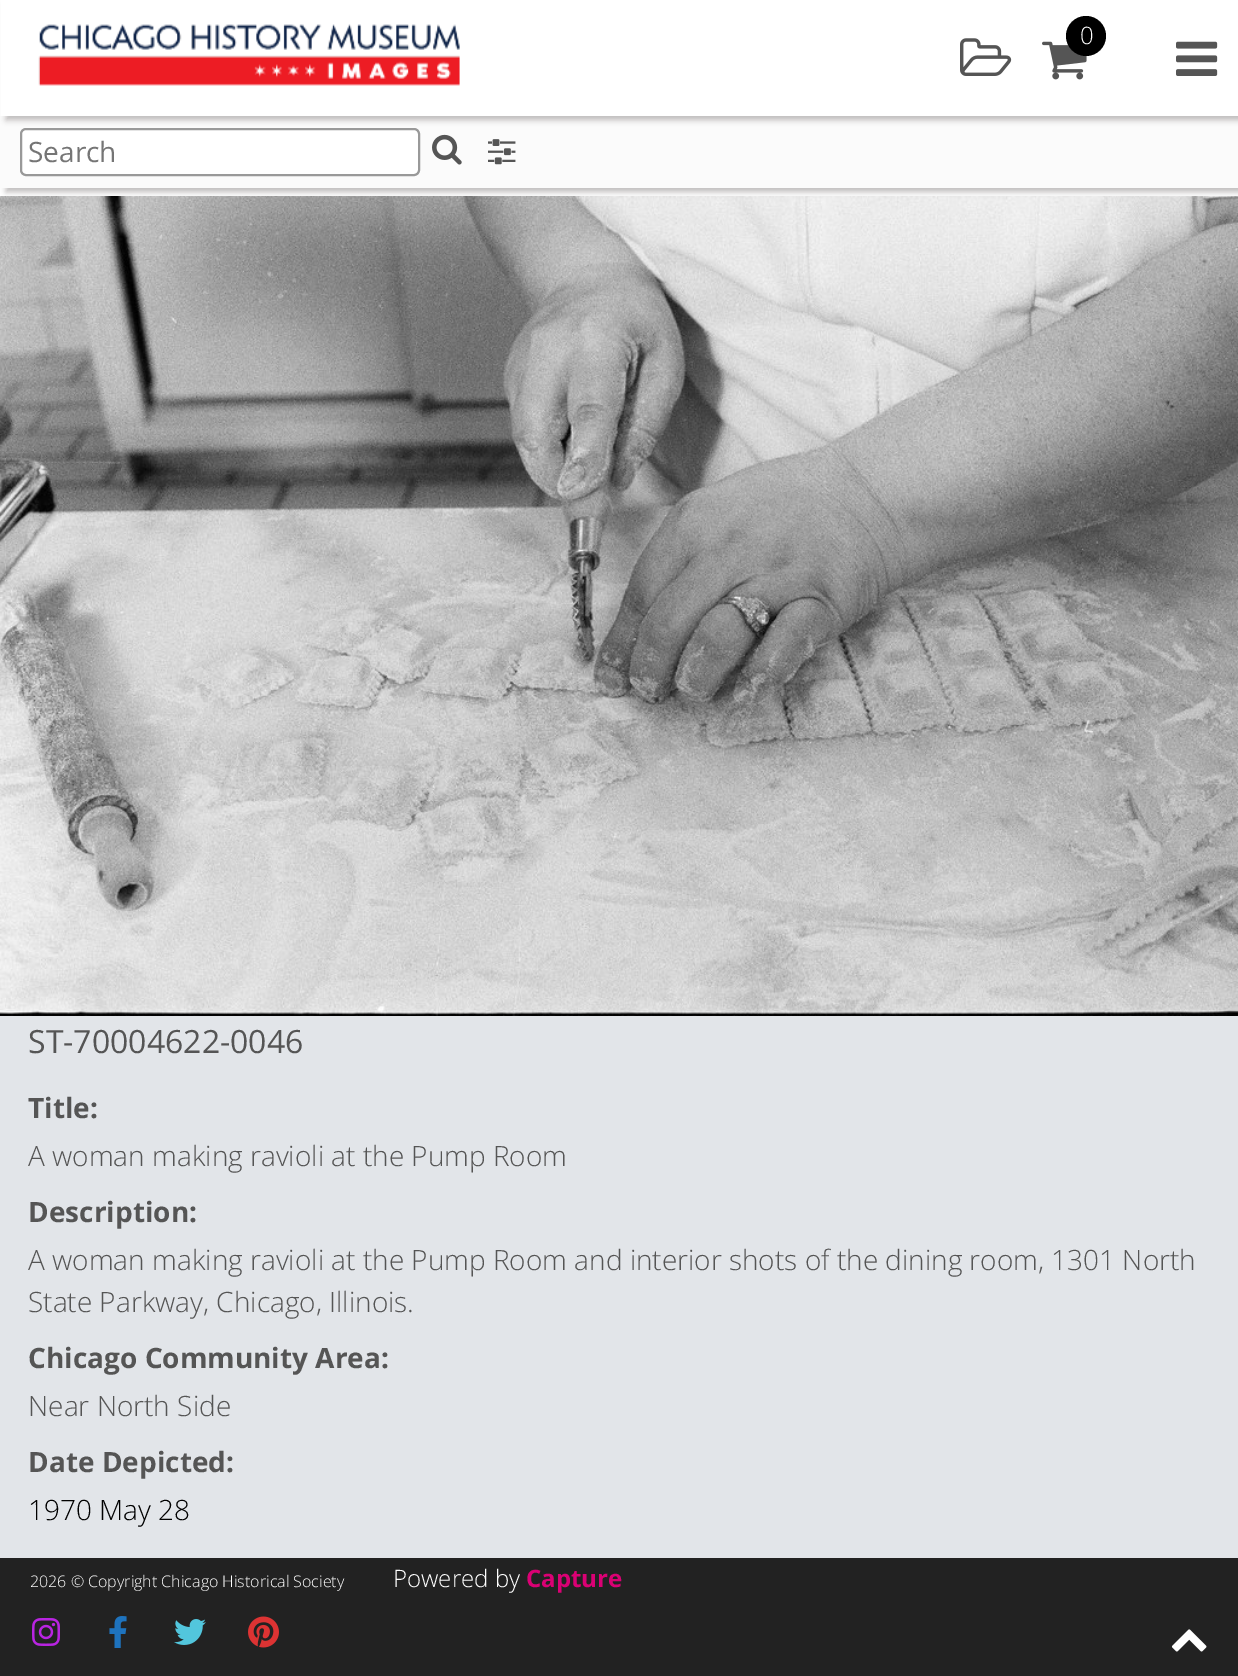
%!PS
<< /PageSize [1238 1676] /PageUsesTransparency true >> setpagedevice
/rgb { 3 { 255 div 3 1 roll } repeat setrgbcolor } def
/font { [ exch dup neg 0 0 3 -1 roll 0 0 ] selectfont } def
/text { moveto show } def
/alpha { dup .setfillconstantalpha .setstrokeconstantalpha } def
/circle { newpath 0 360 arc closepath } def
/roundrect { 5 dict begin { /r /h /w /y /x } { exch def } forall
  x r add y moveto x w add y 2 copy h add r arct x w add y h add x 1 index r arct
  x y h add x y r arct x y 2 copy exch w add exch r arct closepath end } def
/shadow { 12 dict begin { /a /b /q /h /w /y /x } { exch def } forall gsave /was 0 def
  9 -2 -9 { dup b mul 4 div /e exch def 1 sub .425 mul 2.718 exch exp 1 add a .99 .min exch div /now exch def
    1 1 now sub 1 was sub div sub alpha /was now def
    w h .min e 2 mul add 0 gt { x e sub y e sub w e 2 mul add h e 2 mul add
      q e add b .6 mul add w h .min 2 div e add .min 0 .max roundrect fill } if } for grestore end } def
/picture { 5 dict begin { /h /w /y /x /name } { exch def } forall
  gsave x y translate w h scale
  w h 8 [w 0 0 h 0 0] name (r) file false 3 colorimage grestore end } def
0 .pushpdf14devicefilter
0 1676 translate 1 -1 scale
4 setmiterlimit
255 255 255 rgb
0 0 1238 1676 rectfill
(img_07.rgb) 0 196 1238 820 picture
74 69 69 rgb
6 120 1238 72 0 3 0.35 shadow
251 251 251 rgb
0 116 1238 72 rectfill
255 255 255 rgb
21 129 398 46 5 roundrect gsave fill grestore
153 153 153 rgb
2 setlinewidth
stroke
74 69 69 rgb
6 4 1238 116 0 3 0.35 shadow
255 255 255 rgb
1 0 1237 116 rectfill
(img_01.rgb) 38 24 422 62 picture
(img_02.rgb) 1042 41 45 39 picture
0 0 0 rgb
1086 36 20 circle fill
(img_03.rgb) 960 38 52 38 picture
(img_04.rgb) 1176 41 42 35 picture
(img_05.rgb) 432 134 30 31 picture
(img_06.rgb) 488 139 28 26 picture
226 229 233 rgb
0 1016 1238 542 rectfill
34 34 34 rgb
0 1558 1238 118 rectfill
(img_08.rgb) 32 1618 28 28 picture
(img_09.rgb) 109 1616 18 32 picture
(img_10.rgb) 174 1619 32 26 picture
(img_11.rgb) 248 1616 31 32 picture
(img_12.rgb) 1171 1629 36 23 picture
/OpenSans-Light 24 font
255 255 255 rgb
(0) 1080 44 text
/OpenSans-Regular 28 font
117 117 117 rgb
(Search) 28 162 text
/OpenSans-Regular 32 font
85 85 85 rgb
(ST-70004622-0046) 28 1053 text
/OpenSans-Bold 28 font
(Title:) 28 1118 text
/OpenSans-Light 28 font
(A woman making ravioli at the Pump Room) 28 1166 text
/OpenSans-Bold 28 font
(Description:) 28 1222 text
/OpenSans-Light 28 font
(A woman making ravioli at the Pump Room and interior shots of the dining room, 1301 North) 28 1270 text
(State Parkway, Chicago, Illinois.) 28 1312 text
/OpenSans-Bold 28 font
(Chicago Community Area:) 28 1368 text
/OpenSans-Light 28 font
(Near North Side) 28 1416 text
/OpenSans-Bold 28 font
(Date Depicted:) 28 1472 text
/OpenSans-Light 28 font
0 0 0 rgb
(1970 May 28) 28 1520 text
/OpenSans-Light 16 font
255 255 255 rgb
(2026 © Copyright Chicago Historical Society) 30 1587 text
/OpenSans-Light 24 font
(Powered by) 393 1587 text
/OpenSans-Bold 24 font
219 0 116 rgb
(Capture) 526 1587 text
.poppdf14devicefilter showpage
